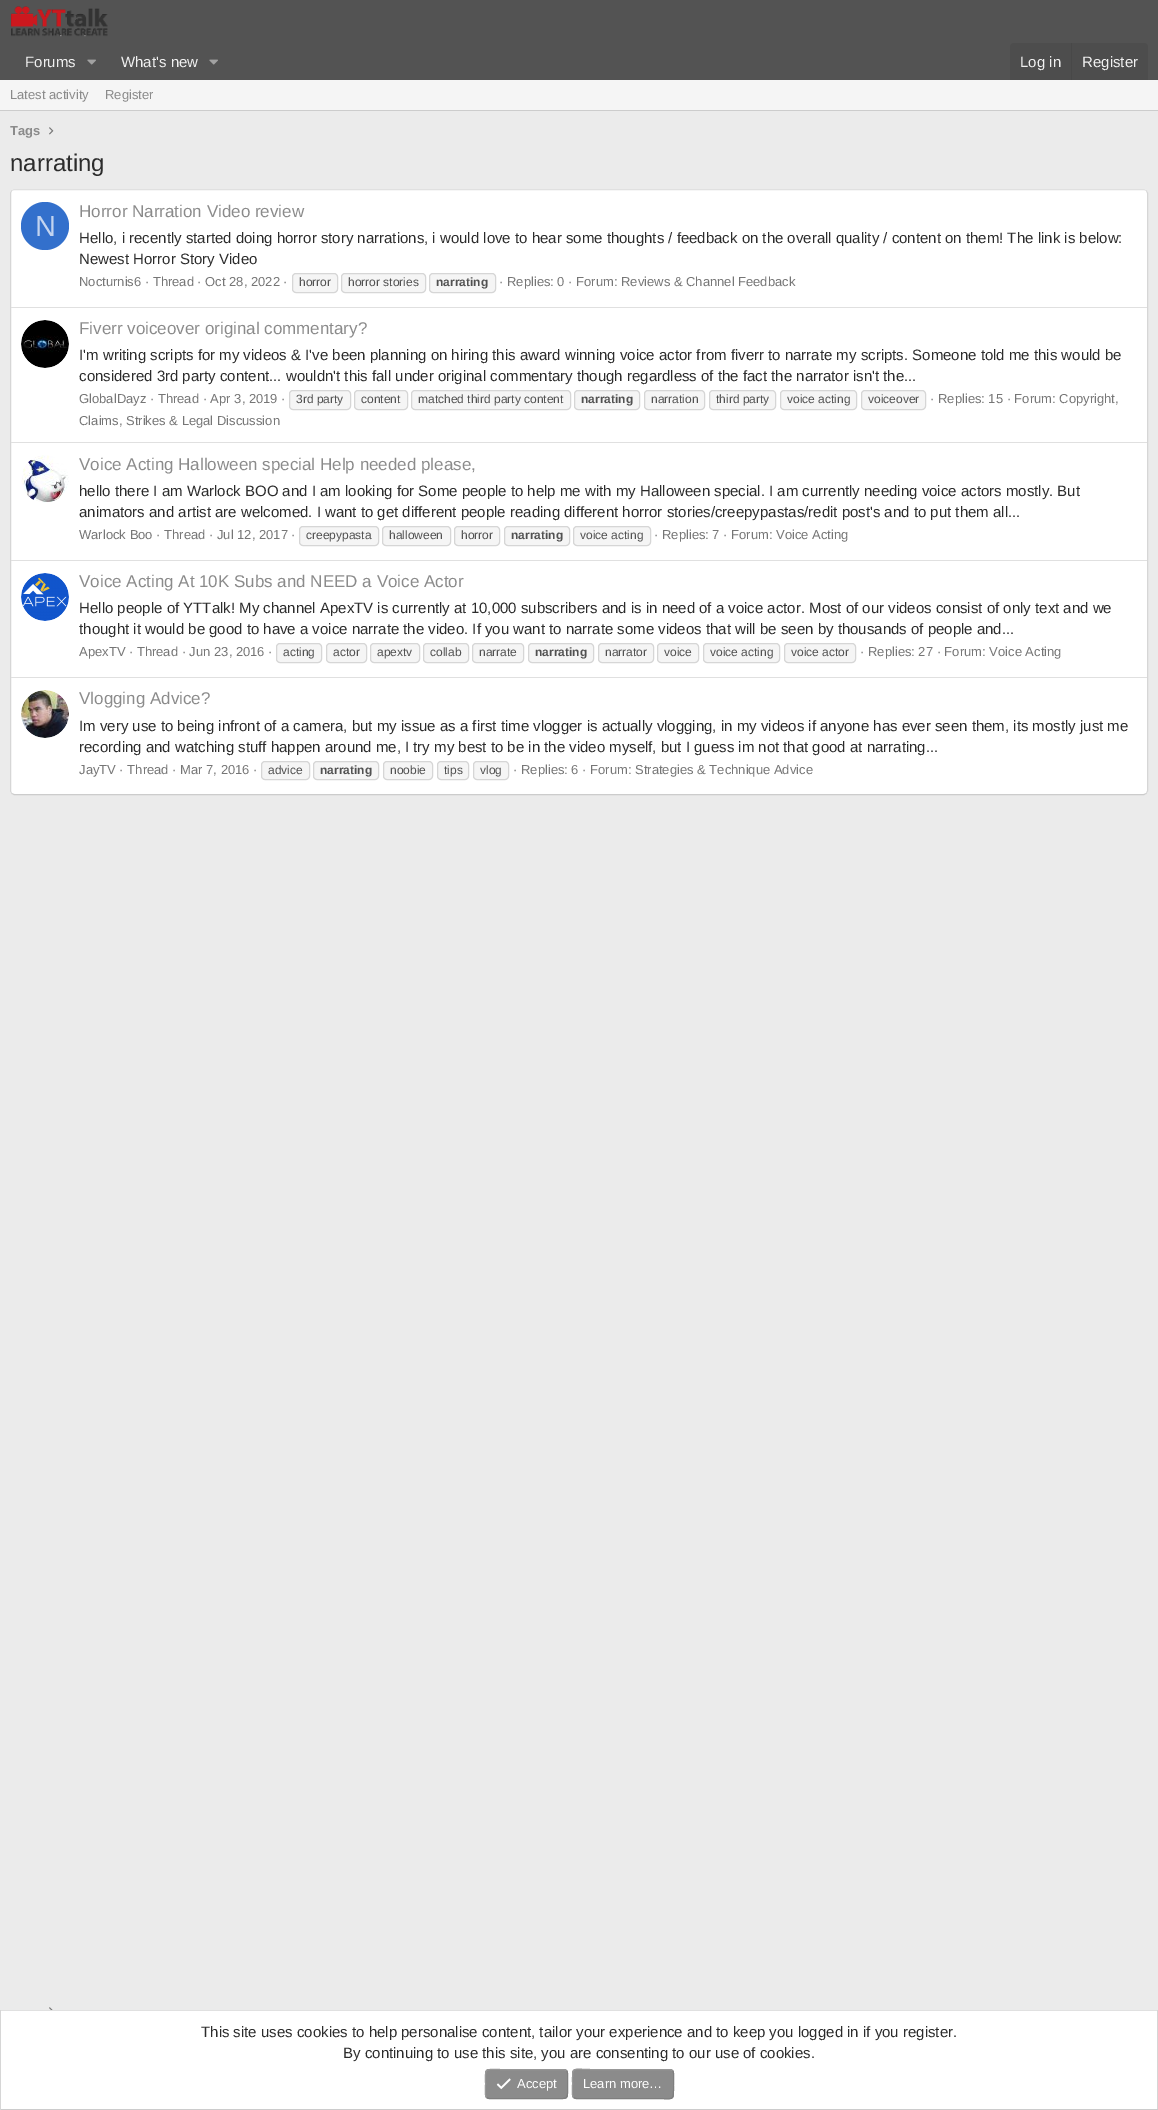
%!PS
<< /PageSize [1158 2110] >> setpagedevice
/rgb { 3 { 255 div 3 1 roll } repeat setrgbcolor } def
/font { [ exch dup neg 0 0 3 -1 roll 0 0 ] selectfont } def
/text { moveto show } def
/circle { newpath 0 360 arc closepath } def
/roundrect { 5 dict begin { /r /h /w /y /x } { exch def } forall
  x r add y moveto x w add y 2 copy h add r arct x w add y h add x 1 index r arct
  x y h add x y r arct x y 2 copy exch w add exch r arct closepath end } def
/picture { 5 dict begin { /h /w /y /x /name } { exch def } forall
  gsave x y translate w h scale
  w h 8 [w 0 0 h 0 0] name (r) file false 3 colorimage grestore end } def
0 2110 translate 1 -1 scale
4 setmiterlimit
235 235 235 rgb
0 0 1158 2110 rectfill
83 83 83 rgb
0 0 1158 80 rectfill
(img_01.rgb) 11 6 97 31 picture
(img_02.rgb) 87 59 9 6 picture
(img_02.rgb) 209 59 9 6 picture
77 77 77 rgb
1014 43 moveto 130 0 rlineto 2 0 4 2 4 4 rcurveto 0 33 rlineto -138 0 rlineto 0 -33 rlineto 0 -2 2 -4 4 -4 rcurveto closepath fill
72 72 72 rgb
1071 43 1 37 rectfill
245 245 245 rgb
0 80 1158 30 rectfill
204 204 204 rgb
0 110 1158 1 rectfill
(img_03.rgb) 49 127 5 8 picture
255 255 255 rgb
10 189 1138 606 4 roundrect fill
224 224 224 rgb
11.5 190.5 moveto 2.5 -1 rlineto 1130 0 rlineto 2.5 1 rlineto stroke
214 214 214 rgb
1146.5 190.5 moveto 1 2.5 rlineto 0 598 rlineto -1 2.5 rlineto stroke
204 204 204 rgb
1146.5 793.5 moveto -2.5 1 rlineto -1130 0 rlineto -2.5 -1 rlineto stroke
214 214 214 rgb
11.5 793.5 moveto -1 -2.5 rlineto 0 -598 rlineto 1 -2.5 rlineto stroke
51 112 204 rgb
45 226 24 circle fill
245 245 245 rgb
292.5 273.5 45 19 3.5 roundrect gsave fill grestore
214 214 214 rgb
stroke
245 245 245 rgb
341.5 273.5 84 19 3.5 roundrect gsave fill grestore
214 214 214 rgb
stroke
245 245 245 rgb
429.5 273.5 66 19 3.5 roundrect gsave fill grestore
214 214 214 rgb
stroke
224 224 224 rgb
11 307 1136 1 rectfill
(img_04.rgb) 21 320 48 48 picture
245 245 245 rgb
289.5 390.5 61 19 3.5 roundrect gsave fill grestore
214 214 214 rgb
stroke
245 245 245 rgb
354.5 390.5 53 19 3.5 roundrect gsave fill grestore
214 214 214 rgb
stroke
245 245 245 rgb
411.5 390.5 159 19 3.5 roundrect gsave fill grestore
214 214 214 rgb
stroke
245 245 245 rgb
574.5 390.5 65 19 3.5 roundrect gsave fill grestore
214 214 214 rgb
stroke
245 245 245 rgb
644.5 390.5 60 19 3.5 roundrect gsave fill grestore
214 214 214 rgb
stroke
245 245 245 rgb
709.5 390.5 66 19 3.5 roundrect gsave fill grestore
214 214 214 rgb
stroke
245 245 245 rgb
780.5 390.5 76 19 3.5 roundrect gsave fill grestore
214 214 214 rgb
stroke
245 245 245 rgb
861.5 390.5 64 19 3.5 roundrect gsave fill grestore
214 214 214 rgb
stroke
224 224 224 rgb
11 442 1136 1 rectfill
(img_05.rgb) 21 455 48 48 picture
245 245 245 rgb
299.5 526.5 79 19 3.5 roundrect gsave fill grestore
214 214 214 rgb
stroke
245 245 245 rgb
382.5 526.5 68 19 3.5 roundrect gsave fill grestore
214 214 214 rgb
stroke
245 245 245 rgb
454.5 526.5 45 19 3.5 roundrect gsave fill grestore
214 214 214 rgb
stroke
245 245 245 rgb
504.5 526.5 65 19 3.5 roundrect gsave fill grestore
214 214 214 rgb
stroke
245 245 245 rgb
573.5 526.5 77 19 3.5 roundrect gsave fill grestore
214 214 214 rgb
stroke
224 224 224 rgb
11 560 1136 1 rectfill
(img_06.rgb) 21 573 48 48 picture
245 245 245 rgb
276.5 643.5 45 19 3.5 roundrect gsave fill grestore
214 214 214 rgb
stroke
245 245 245 rgb
326.5 643.5 40 19 3.5 roundrect gsave fill grestore
214 214 214 rgb
stroke
245 245 245 rgb
370.5 643.5 49 19 3.5 roundrect gsave fill grestore
214 214 214 rgb
stroke
245 245 245 rgb
423.5 643.5 45 19 3.5 roundrect gsave fill grestore
214 214 214 rgb
stroke
245 245 245 rgb
472.5 643.5 51 19 3.5 roundrect gsave fill grestore
214 214 214 rgb
stroke
245 245 245 rgb
528.5 643.5 65 19 3.5 roundrect gsave fill grestore
214 214 214 rgb
stroke
245 245 245 rgb
598.5 643.5 55 19 3.5 roundrect gsave fill grestore
214 214 214 rgb
stroke
245 245 245 rgb
657.5 643.5 41 19 3.5 roundrect gsave fill grestore
214 214 214 rgb
stroke
245 245 245 rgb
703.5 643.5 76 19 3.5 roundrect gsave fill grestore
214 214 214 rgb
stroke
245 245 245 rgb
784.5 643.5 71 19 3.5 roundrect gsave fill grestore
214 214 214 rgb
stroke
224 224 224 rgb
11 677 1136 1 rectfill
(img_07.rgb) 21 690 48 48 picture
245 245 245 rgb
261.5 761.5 48 18 3.5 roundrect gsave fill grestore
214 214 214 rgb
stroke
245 245 245 rgb
313.5 761.5 65 18 3.5 roundrect gsave fill grestore
214 214 214 rgb
stroke
245 245 245 rgb
383.5 761.5 49 18 3.5 roundrect gsave fill grestore
214 214 214 rgb
stroke
245 245 245 rgb
437.5 761.5 31 18 3.5 roundrect gsave fill grestore
214 214 214 rgb
stroke
245 245 245 rgb
473.5 761.5 35 18 3.5 roundrect gsave fill grestore
214 214 214 rgb
stroke
(img_08.rgb) 49 2007 4 3 picture
255 255 255 rgb
1 2011 1156 98 rectfill
224 224 224 rgb
0 2010 1158 1 rectfill
214 214 214 rgb
1157 2010 1 100 rectfill
204 204 204 rgb
0 2109 1158 1 rectfill
214 214 214 rgb
0 2010 1 100 rectfill
139 139 139 rgb
485 2069 83 30 4 roundrect fill
126 126 126 rgb
566.5 2070.5 moveto 2 2 1 10.5 1 13.5 rcurveto 0 17 2 14.5 -16 14.5 rcurveto -62.5 0 rlineto -2.5 -1 rlineto stroke
152 152 152 rgb
486.5 2097.5 moveto -2 -2 -1 -10.5 -1 -13.5 rcurveto 0 -17 -2 -14.5 16 -14.5 rcurveto 62.5 0 rlineto 2.5 1 rlineto stroke
(img_09.rgb) 496 2078 15 12 picture
139 139 139 rgb
572 2069 102 30 4 roundrect fill
126 126 126 rgb
672.5 2070.5 moveto 2 2 1 10.5 1 13.5 rcurveto 0 18.5 1.5 14.5 -19 14.5 rcurveto -78.5 0 rlineto -2.5 -1 rlineto stroke
152 152 152 rgb
573.5 2097.5 moveto -2 -2 -1 -10.5 -1 -13.5 rcurveto 0 -18.5 -1.5 -14.5 19 -14.5 rcurveto 78.5 0 rlineto 2.5 1 rlineto stroke
/LiberationSans-Regular 15 font
240 240 240 rgb
(Forums) 25 67 text
(What's new) 121 67 text
(Log in) 1020 67 text
(Register) 1082 67 text
/LiberationSans-Regular 13 font
139 139 139 rgb
(Latest activity) 10 99 text
(Register) 105 99 text
/LiberationSans-Bold 13 font
(Tags) 10 135 text
/LiberationSans-Regular 24 font
44 44 44 rgb
(narrating) 10 171 text
/LiberationSans-Regular 29 font
194 212 240 rgb
(N) 35 236 text
/LiberationSans-Regular 17 font
139 139 139 rgb
(Horror Narration Video review) 79 217 text
/LiberationSans-Regular 15 font
44 44 44 rgb
(Hello, i recently started doing horror story narrations, i would love to hear some thoughts / feedback on the overall quality / content on them! The link is below:) 79 243 text
(Newest Horror Story Video) 79 264 text
/LiberationSans-Regular 13 font
118 118 118 rgb
(Nocturnis6 · Thread · Oct 28, 2022 ·) 79 286 text
/LiberationSans-Regular 12 font
81 81 81 rgb
(horror) 299 286 text
(horror stories) 348 286 text
/LiberationSans-Bold 12 font
(narrating) 436 286 text
/LiberationSans-Regular 13 font
118 118 118 rgb
(· Replies: 0 · Forum: Reviews & Channel Feedback) 499 286 text
/LiberationSans-Regular 17 font
139 139 139 rgb
(Fiverr voiceover original commentary?) 79 334 text
/LiberationSans-Regular 15 font
44 44 44 rgb
(I'm writing scripts for my videos & I've been planning on hiring this award winning voice actor from fiverr to narrate my scripts. Someone told me this would be) 79 360 text
(considered 3rd party content... wouldn't this fall under original commentary though regardless of the fact the narrator isn't the...) 79 381 text
/LiberationSans-Regular 13 font
118 118 118 rgb
(GlobalDayz · Thread · Apr 3, 2019 ·) 79 403 text
/LiberationSans-Regular 12 font
81 81 81 rgb
(3rd party) 296 403 text
(content) 361 403 text
(matched third party content) 418 403 text
/LiberationSans-Bold 12 font
(narrating) 581 403 text
/LiberationSans-Regular 12 font
(narration) 651 403 text
(third party) 716 403 text
(voice acting) 787 403 text
(voiceover) 868 403 text
/LiberationSans-Regular 13 font
118 118 118 rgb
(· Replies: 15 · Forum: Copyright,) 930 403 text
(Claims, Strikes & Legal Discussion) 79 425 text
/LiberationSans-Regular 17 font
139 139 139 rgb
(Voice Acting Halloween special Help needed please,) 79 470 text
/LiberationSans-Regular 15 font
44 44 44 rgb
(hello there I am Warlock BOO and I am looking for Some people to help me with my Halloween special. I am currently needing voice actors mostly. But) 79 496 text
(animators and artist are welcomed. I want to get different people reading different horror stories/creepypastas/redit post's and to put them all...) 79 517 text
/LiberationSans-Regular 13 font
118 118 118 rgb
(Warlock Boo · Thread · Jul 12, 2017 ·) 79 539 text
/LiberationSans-Regular 12 font
81 81 81 rgb
(creepypasta) 306 539 text
(halloween) 389 539 text
(horror) 461 539 text
/LiberationSans-Bold 12 font
(narrating) 511 539 text
/LiberationSans-Regular 12 font
(voice acting) 580 539 text
/LiberationSans-Regular 13 font
118 118 118 rgb
(· Replies: 7 · Forum: Voice Acting) 654 539 text
/LiberationSans-Regular 17 font
139 139 139 rgb
(Voice Acting At 10K Subs and NEED a Voice Actor) 79 587 text
/LiberationSans-Regular 15 font
44 44 44 rgb
(Hello people of YTTalk! My channel ApexTV is currently at 10,000 subscribers and is in need of a voice actor. Most of our videos consist of only text and we) 79 613 text
(thought it would be good to have a voice narrate the video. If you want to narrate some videos that will be seen by thousands of people and...) 79 634 text
/LiberationSans-Regular 13 font
118 118 118 rgb
(ApexTV · Thread · Jun 23, 2016 ·) 79 656 text
/LiberationSans-Regular 12 font
81 81 81 rgb
(acting) 283 656 text
(actor) 333 656 text
(apextv) 377 656 text
(collab) 430 656 text
(narrate) 479 656 text
/LiberationSans-Bold 12 font
(narrating) 535 656 text
/LiberationSans-Regular 12 font
(narrator) 605 656 text
(voice) 664 656 text
(voice acting) 710 656 text
(voice actor) 791 656 text
/LiberationSans-Regular 13 font
118 118 118 rgb
(· Replies: 27 · Forum: Voice Acting) 860 656 text
/LiberationSans-Regular 17 font
139 139 139 rgb
(Vlogging Advice?) 79 704 text
/LiberationSans-Regular 15 font
44 44 44 rgb
(Im very use to being infront of a camera, but my issue as a first time vlogger is actually vlogging, in my videos if anyone has ever seen them, its mostly just me) 79 731 text
(recording and watching stuff happen around me, I try my best to be in the video myself, but I guess im not that good at narrating...) 79 752 text
/LiberationSans-Regular 13 font
118 118 118 rgb
(JayTV · Thread · Mar 7, 2016 ·) 79 774 text
/LiberationSans-Regular 12 font
81 81 81 rgb
(advice) 268 774 text
/LiberationSans-Bold 12 font
(narrating) 320 774 text
/LiberationSans-Regular 12 font
(noobie) 390 774 text
(tips) 444 774 text
(vlog) 480 774 text
/LiberationSans-Regular 13 font
118 118 118 rgb
(· Replies: 6 · Forum: Strategies & Technique Advice) 513 774 text
/LiberationSans-Regular 15 font
44 44 44 rgb
(This site uses cookies to help personalise content, tailor your experience and to keep you logged in if you register.) 201 2037 text
(By continuing to use this site, you are consenting to our use of cookies.) 343 2058 text
/LiberationSans-Regular 13 font
255 255 255 rgb
(Accept) 517 2088 text
(Learn more…) 583 2088 text
showpage
